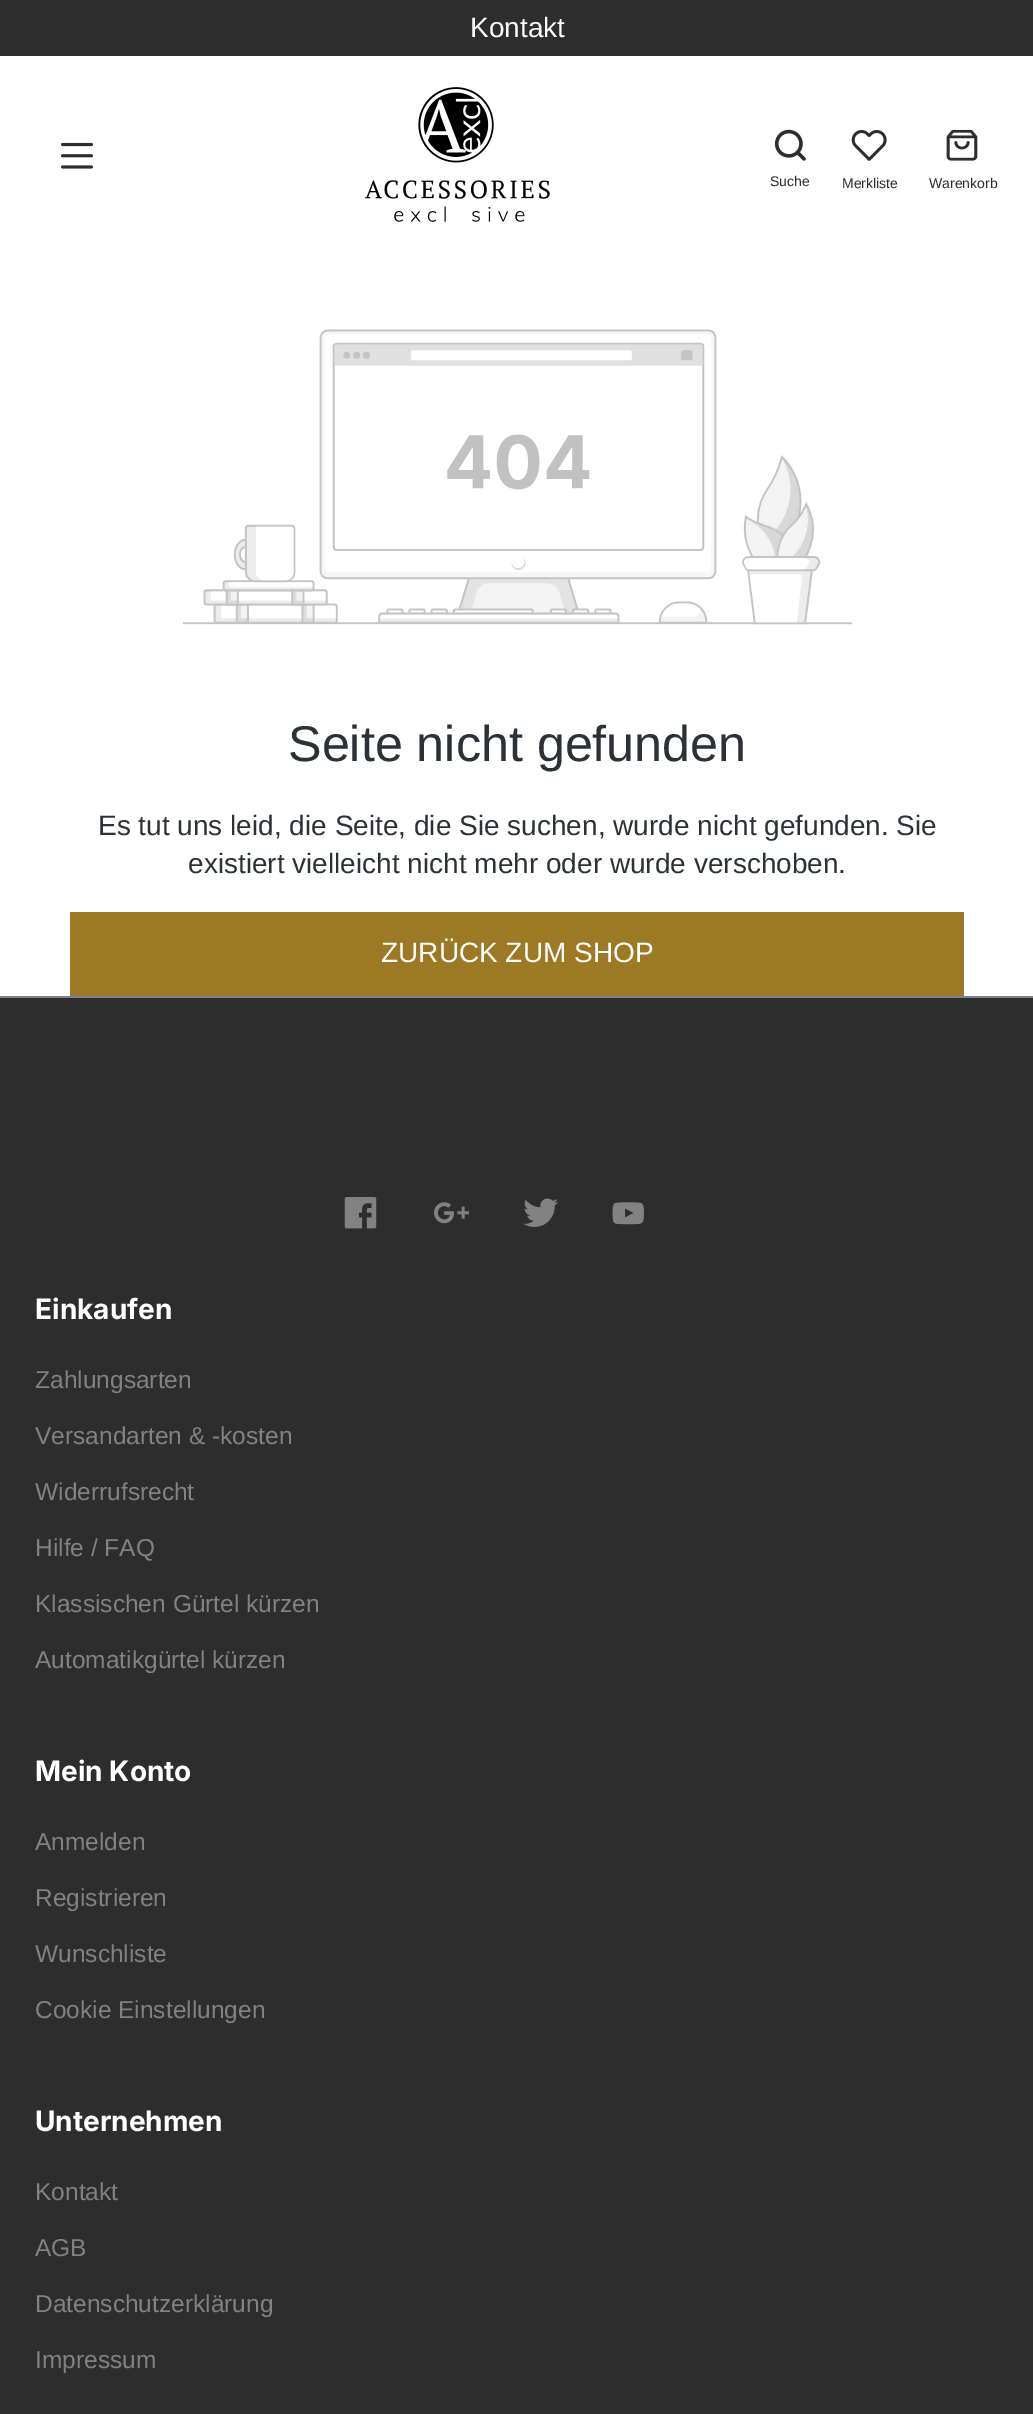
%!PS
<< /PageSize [1033 2414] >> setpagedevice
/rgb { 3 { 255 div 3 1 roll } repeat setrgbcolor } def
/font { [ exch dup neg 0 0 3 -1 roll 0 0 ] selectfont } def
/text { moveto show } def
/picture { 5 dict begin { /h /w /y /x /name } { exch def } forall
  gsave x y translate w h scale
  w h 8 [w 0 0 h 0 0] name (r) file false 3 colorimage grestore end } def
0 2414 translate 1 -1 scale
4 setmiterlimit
255 255 255 rgb
0 0 1033 2414 rectfill
45 45 45 rgb
0 0 1033 56 rectfill
(img_01.rgb) 61 142 32 27 picture
(img_02.rgb) 364 87 186 135 picture
(img_03.rgb) 774 129 32 32 picture
(img_04.rgb) 851 130 36 31 picture
(img_05.rgb) 946 129 32 32 picture
(img_06.rgb) 183 329 669 296 picture
157 120 37 rgb
70 912 894 84 rectfill
45 45 45 rgb
0 998 1033 1416 rectfill
121 132 144 rgb
0 996 1033 2 rectfill
(img_07.rgb) 344 1197 33 32 picture
(img_08.rgb) 434 1202 35 22 picture
(img_09.rgb) 523 1198 35 29 picture
(img_10.rgb) 612 1202 32 23 picture
/LiberationSans-Regular 28 font
255 255 255 rgb
(Kontakt) 470 37 text
/LiberationSans-Regular 14 font
45 45 45 rgb
(Suche) 770 186 text
(Merkliste) 842 188 text
(Warenkorb) 929 188 text
/LiberationSans-Regular 50.25 font
43 49 54 rgb
(Seite nicht gefunden) 288 761 text
/LiberationSans-Regular 28 font
(Es tut uns leid, die Seite, die Sie suchen, wurde nicht gefunden. Sie) 98 835 text
(existiert vielleicht nicht mehr oder wurde verschoben.) 188 873 text
255 255 255 rgb
(ZURÜCK ZUM SHOP) 381 962 text
/Inter-Bold 28 font
(Einkaufen) 35 1319 text
/LiberationSans-Regular 24.5 font
130 130 130 rgb
(Zahlungsarten) 35 1388 text
(Versandarten & -kosten) 35 1444 text
(Widerrufsrecht) 35 1500 text
(Hilfe / FAQ) 35 1556 text
(Klassischen Gürtel kürzen) 35 1612 text
(Automatikgürtel kürzen) 35 1668 text
/Inter-Bold 28 font
255 255 255 rgb
(Mein Konto) 35 1781 text
/LiberationSans-Regular 24.5 font
130 130 130 rgb
(Anmelden) 35 1850 text
(Registrieren) 35 1906 text
(Wunschliste) 35 1962 text
(Cookie Einstellungen) 35 2018 text
/Inter-Bold 28 font
255 255 255 rgb
(Unternehmen) 35 2131 text
/LiberationSans-Regular 24.5 font
130 130 130 rgb
(Kontakt) 35 2200 text
(AGB) 35 2256 text
(Datenschutzerklärung) 35 2312 text
(Impressum) 35 2368 text
showpage
